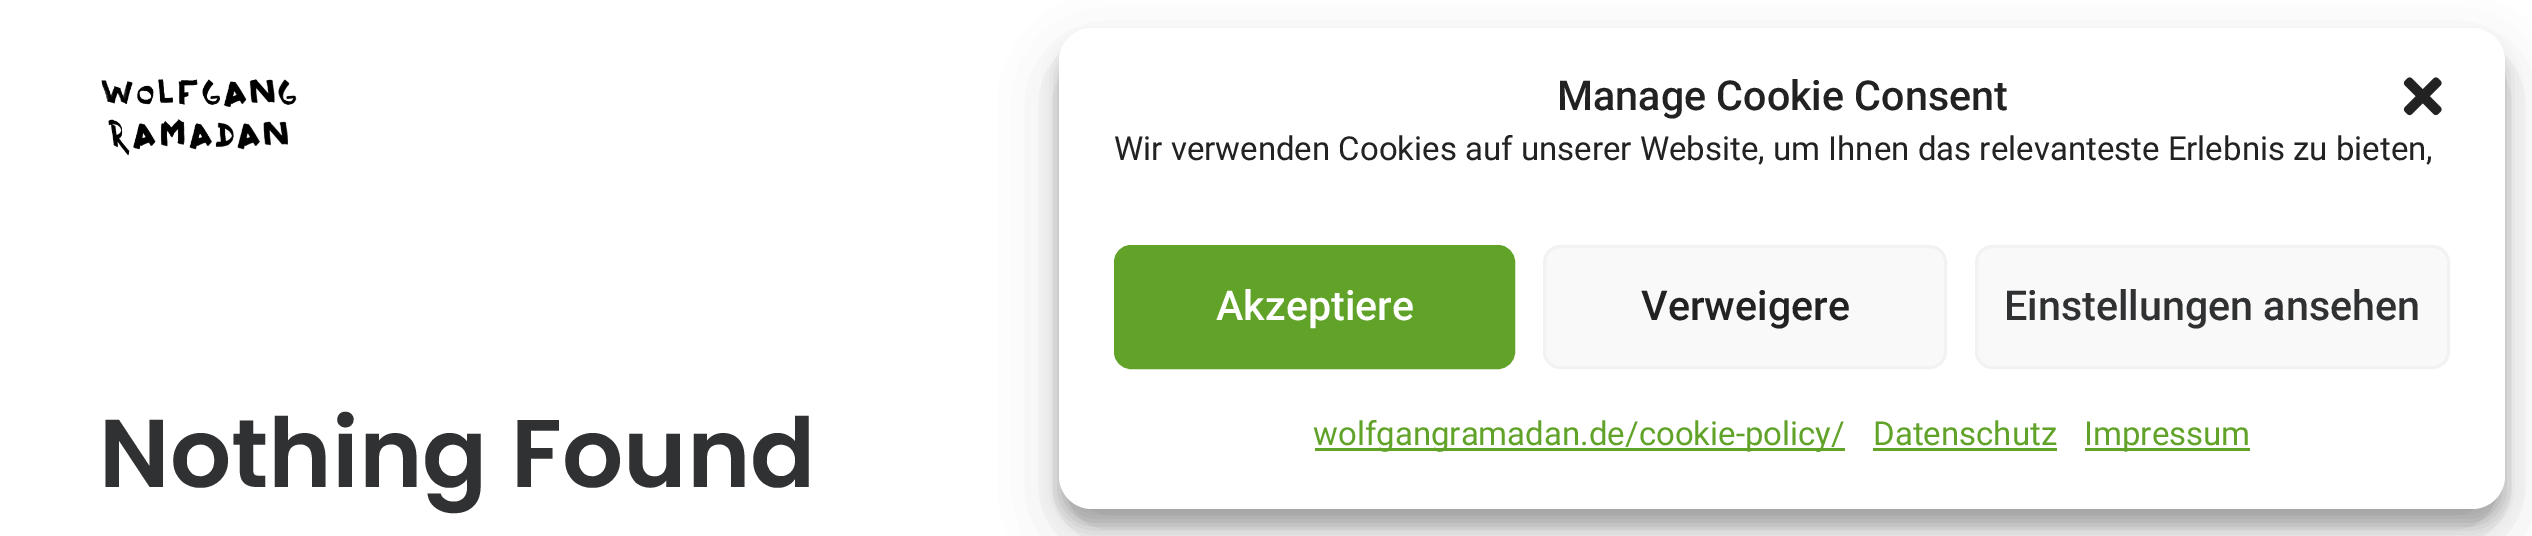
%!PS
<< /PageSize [2532 536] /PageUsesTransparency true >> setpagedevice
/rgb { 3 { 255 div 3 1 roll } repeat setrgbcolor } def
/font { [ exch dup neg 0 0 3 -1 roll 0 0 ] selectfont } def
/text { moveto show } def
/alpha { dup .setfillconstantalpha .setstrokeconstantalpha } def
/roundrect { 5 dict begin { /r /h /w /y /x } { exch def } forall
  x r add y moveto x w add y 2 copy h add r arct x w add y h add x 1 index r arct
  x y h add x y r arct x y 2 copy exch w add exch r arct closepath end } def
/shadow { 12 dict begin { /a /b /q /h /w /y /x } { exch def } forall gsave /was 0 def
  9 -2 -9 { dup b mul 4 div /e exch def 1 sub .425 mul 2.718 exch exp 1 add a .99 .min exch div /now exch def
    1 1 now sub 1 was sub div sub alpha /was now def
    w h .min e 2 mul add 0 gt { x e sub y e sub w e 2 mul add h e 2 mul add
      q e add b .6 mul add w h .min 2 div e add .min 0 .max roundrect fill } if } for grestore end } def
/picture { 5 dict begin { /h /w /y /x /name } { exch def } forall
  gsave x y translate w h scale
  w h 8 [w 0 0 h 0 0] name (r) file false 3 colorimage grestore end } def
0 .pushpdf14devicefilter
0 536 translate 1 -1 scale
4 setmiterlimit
255 255 255 rgb
0 0 2532 536 rectfill
(img_01.rgb) 101 79 196 77 picture
0 0 0 rgb
1059 44 1446 481 33 8 0.23 shadow
1059 55 1446 481 33 27.5 0.19 shadow
255 255 255 rgb
1059 28 1446 481 33 roundrect fill
(img_02.rgb) 2403 77 39 39 picture
97 162 41 rgb
1115.5 246.5 398 121 15.5 roundrect gsave fill grestore
3 setlinewidth
stroke
249 249 249 rgb
1544.5 246.5 401 121 15.5 roundrect gsave fill grestore
242 242 242 rgb
stroke
249 249 249 rgb
1976.5 246.5 472 121 15.5 roundrect gsave fill grestore
242 242 242 rgb
stroke
97 162 41 rgb
1315 448 530 3 rectfill
1873 448 184 3 rectfill
2085 448 165 3 rectfill
/Poppins-SemiBold 96.25 font
48 49 51 rgb
(Nothing Found) 99 487 text
/Roboto-Medium 41.25 font
34 34 34 rgb
(Manage Cookie Consent) 1557 110 text
/Roboto-Regular 33 font
(Wir verwenden Cookies auf unserer Website, um Ihnen das relevanteste Erlebnis zu bieten,) 1114 160 text
/Roboto-Medium 41.25 font
255 255 255 rgb
(Akzeptiere) 1216 320 text
34 34 34 rgb
(Verweigere) 1641 320 text
48 49 51 rgb
(Einstellungen ansehen) 2004 320 text
/Roboto-Regular 33 font
97 162 41 rgb
(wolfgangramadan.de/cookie-policy/) 1313 445 text
(Datenschutz) 1873 445 text
(Impressum) 2084 445 text
.poppdf14devicefilter showpage
